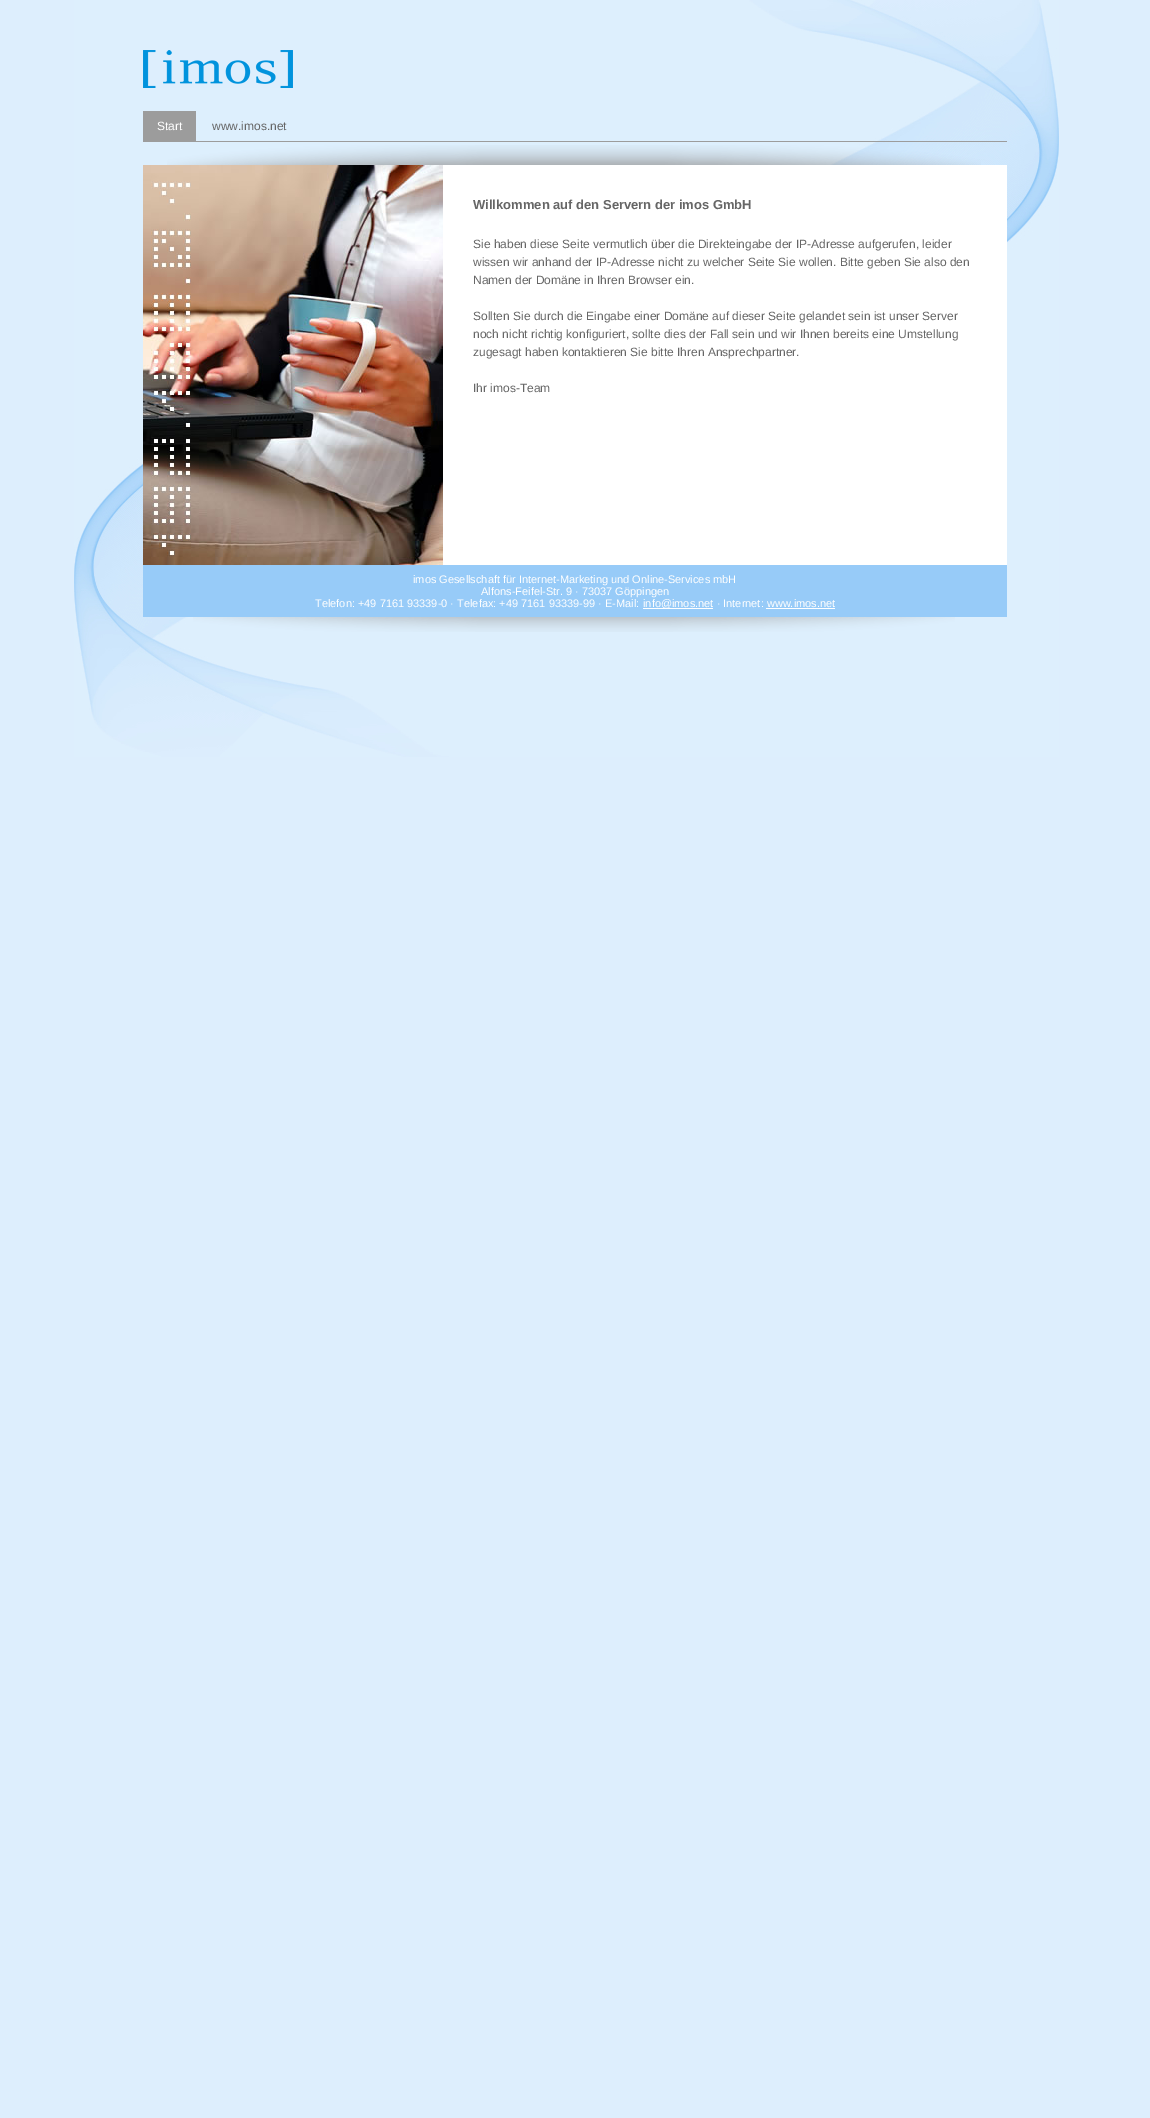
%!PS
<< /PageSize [1150 2118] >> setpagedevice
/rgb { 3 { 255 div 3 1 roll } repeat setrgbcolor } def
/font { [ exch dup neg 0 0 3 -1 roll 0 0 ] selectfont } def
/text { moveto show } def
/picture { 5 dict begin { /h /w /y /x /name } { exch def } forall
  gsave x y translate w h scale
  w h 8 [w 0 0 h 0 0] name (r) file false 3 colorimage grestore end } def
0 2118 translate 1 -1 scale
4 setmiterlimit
221 238 253 rgb
0 0 1150 2118 rectfill
(img_01.rgb) 74 0 985 757 picture
(img_02.rgb) 143 50 150 38 picture
156 156 156 rgb
143 141 864 1 rectfill
143 111 53 30 rectfill
(img_03.rgb) 167 145 814 20 picture
255 255 255 rgb
443 165 564 400 rectfill
(img_04.rgb) 143 165 300 400 picture
151 203 248 rgb
143 565 864 52 rectfill
255 255 255 rgb
643 608 70 1 rectfill
766 608 69 1 rectfill
(img_05.rgb) 193 617 762 15 picture
/LiberationSans-Regular 12 font
(Start) 157 130 text
102 102 102 rgb
(www.imos.net) 212 130 text
/LiberationSans-Bold 13 font
(Willkommen auf den Servern der imos GmbH) 473 209 text
/LiberationSans-Regular 12 font
(Sie haben diese Seite vermutlich über die Direkteingabe der IP-Adresse aufgerufen, leider) 473 248 text
(wissen wir anhand der IP-Adresse nicht zu welcher Seite Sie wollen. Bitte geben Sie also den) 473 266 text
(Namen der Domäne in Ihren Browser ein.) 473 284 text
(Sollten Sie durch die Eingabe einer Domäne auf dieser Seite gelandet sein ist unser Server) 473 320 text
(noch nicht richtig konfiguriert, sollte dies der Fall sein und wir Ihnen bereits eine Umstellung) 473 338 text
(zugesagt haben kontaktieren Sie bitte Ihren Ansprechpartner.) 473 356 text
(Ihr imos-Team) 473 392 text
/LiberationSans-Regular 11 font
255 255 255 rgb
(imos Gesellschaft für Internet-Marketing und Online-Services mbH) 413 583 text
(Alfons-Feifel-Str. 9 · 73037 Göppingen) 481 595 text
(Telefon: +49 7161 93339-0 · Telefax: +49 7161 93339-99 · E-Mail:) 315 607 text
(info@imos.net · Internet: www.imos.net) 643 607 text
showpage
